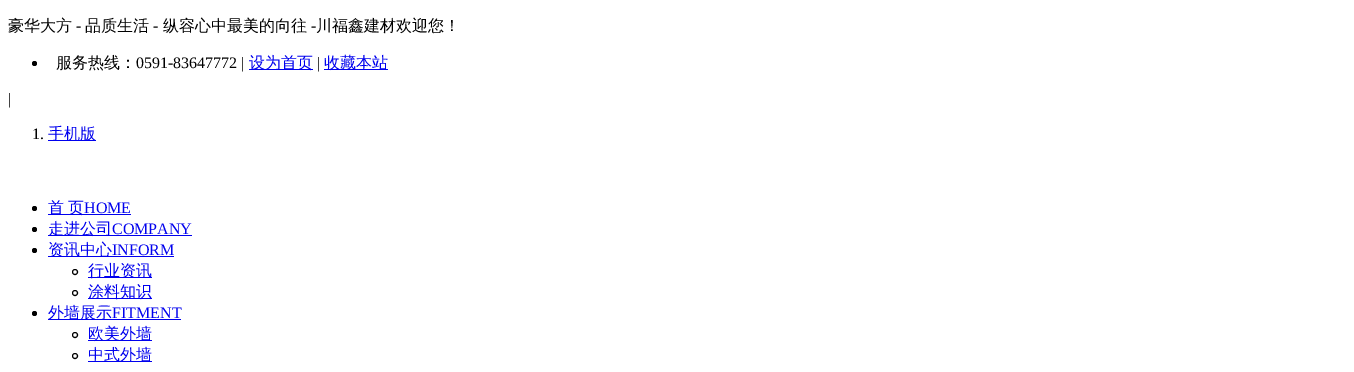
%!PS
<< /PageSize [1354 372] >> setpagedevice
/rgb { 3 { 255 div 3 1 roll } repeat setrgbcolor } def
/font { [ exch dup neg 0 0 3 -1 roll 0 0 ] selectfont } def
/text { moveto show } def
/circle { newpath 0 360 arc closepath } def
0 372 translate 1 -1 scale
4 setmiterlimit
255 255 255 rgb
0 0 1354 372 rectfill
0 0 0 rgb
34.5 63.5 2.5 circle fill
0 0 238 rgb
249 69 64 1 rectfill
324 69 64 1 rectfill
48 140 48 1 rectfill
0 0 0 rgb
34.5 208.5 2.5 circle fill
0 0 238 rgb
48 214 83 1 rectfill
0 0 0 rgb
34.5 229.5 2.5 circle fill
0 0 238 rgb
48 235 144 1 rectfill
0 0 0 rgb
34.5 250.5 2.5 circle fill
0 0 238 rgb
48 256 126 1 rectfill
0 0 0 rgb
75 272 2.5 circle stroke
0 0 238 rgb
88 277 64 1 rectfill
0 0 0 rgb
75 293 2.5 circle stroke
0 0 238 rgb
88 298 64 1 rectfill
0 0 0 rgb
34.5 313.5 2.5 circle fill
0 0 238 rgb
48 319 133 1 rectfill
0 0 0 rgb
75 335 2.5 circle stroke
0 0 238 rgb
88 340 64 1 rectfill
0 0 0 rgb
75 356 2.5 circle stroke
0 0 238 rgb
88 361 64 1 rectfill
/WenQuanYiZenHei-Medium 16 font
0 0 0 rgb
(豪华大方) 8 31 text
/LiberationSerif-Regular 16 font
(-) 76 31 text
/WenQuanYiZenHei-Medium 16 font
(品质生活) 85 31 text
/LiberationSerif-Regular 16 font
(-) 153 31 text
/WenQuanYiZenHei-Medium 16 font
(纵容心中最美的向往) 163 31 text
/LiberationSerif-Regular 16 font
(-) 311 31 text
/WenQuanYiZenHei-Medium 16 font
(川福鑫建材欢迎您！) 316 31 text
(服务热线：) 56 68 text
/LiberationSerif-Regular 16 font
(0591-83647772 |) 136 68 text
/WenQuanYiZenHei-Medium 16 font
0 0 238 rgb
(设为首页) 249 68 text
/LiberationSerif-Regular 16 font
0 0 0 rgb
(|) 317 68 text
/WenQuanYiZenHei-Medium 16 font
0 0 238 rgb
(收藏本站) 324 68 text
/LiberationSerif-Regular 16 font
0 0 0 rgb
(|) 8 104 text
(1.) 32 139 text
/WenQuanYiZenHei-Medium 16 font
0 0 238 rgb
(手机版) 48 139 text
48 213 moveto -1 0 32 (首 页) widthshow
/LiberationSerif-Regular 16 font
(HOME) 84 213 text
/WenQuanYiZenHei-Medium 16 font
(走进公司) 48 234 text
/LiberationSerif-Regular 16 font
(COMPANY) 112 234 text
/WenQuanYiZenHei-Medium 16 font
(资讯中心) 48 255 text
/LiberationSerif-Regular 16 font
(INFORM) 112 255 text
/WenQuanYiZenHei-Medium 16 font
(行业资讯) 88 276 text
(涂料知识) 88 297 text
(外墙展示) 48 318 text
/LiberationSerif-Regular 16 font
(FITMENT) 112 318 text
/WenQuanYiZenHei-Medium 16 font
(欧美外墙) 88 339 text
(中式外墙) 88 360 text
showpage
